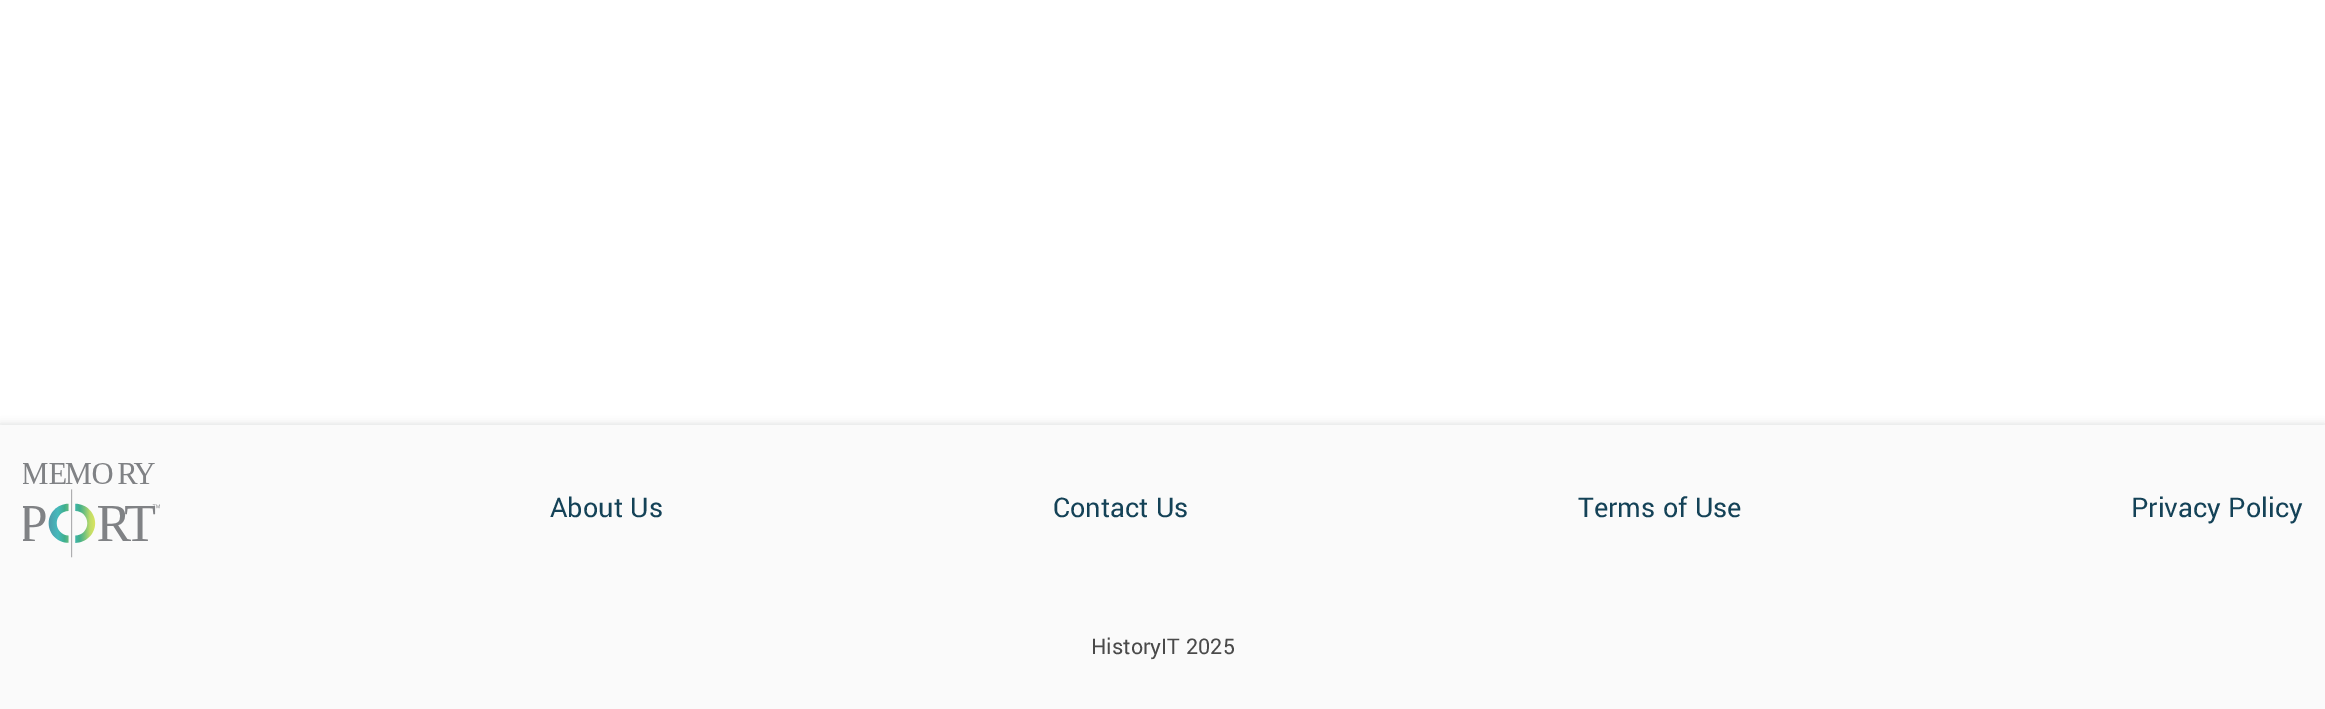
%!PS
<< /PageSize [2325 709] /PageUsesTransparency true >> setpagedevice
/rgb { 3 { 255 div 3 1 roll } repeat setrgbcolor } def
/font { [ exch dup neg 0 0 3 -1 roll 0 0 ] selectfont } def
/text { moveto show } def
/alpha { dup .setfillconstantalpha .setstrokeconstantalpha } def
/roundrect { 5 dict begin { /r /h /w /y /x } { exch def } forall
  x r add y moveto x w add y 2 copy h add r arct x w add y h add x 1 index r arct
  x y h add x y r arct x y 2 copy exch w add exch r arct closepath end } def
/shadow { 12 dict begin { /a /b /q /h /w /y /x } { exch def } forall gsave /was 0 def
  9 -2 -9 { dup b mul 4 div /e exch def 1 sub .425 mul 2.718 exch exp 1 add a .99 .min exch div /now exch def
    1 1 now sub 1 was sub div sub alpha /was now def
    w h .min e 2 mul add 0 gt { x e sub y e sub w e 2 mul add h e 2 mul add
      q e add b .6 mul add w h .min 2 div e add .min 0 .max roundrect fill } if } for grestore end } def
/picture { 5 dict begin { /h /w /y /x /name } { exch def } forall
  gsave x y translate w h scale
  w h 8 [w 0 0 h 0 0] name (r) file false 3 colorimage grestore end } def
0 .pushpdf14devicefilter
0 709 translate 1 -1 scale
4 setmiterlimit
255 255 255 rgb
0 0 2325 709 rectfill
0 16 17 rgb
0 426 2325 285 0 4.5 0.2 shadow
250 250 250 rgb
0 425 2325 284 rectfill
(img_01.rgb) 23 463 137 95 picture
/Yantramanav-Regular 30 font
20 66 87 rgb
(About Us) 550 517 text
(Contact Us) 1053 517 text
(Terms of Use) 1578 517 text
(Privacy Policy) 2131 517 text
/Yantramanav-Regular 24 font
74 74 74 rgb
(HistoryIT 2025) 1091 654 text
.poppdf14devicefilter showpage
